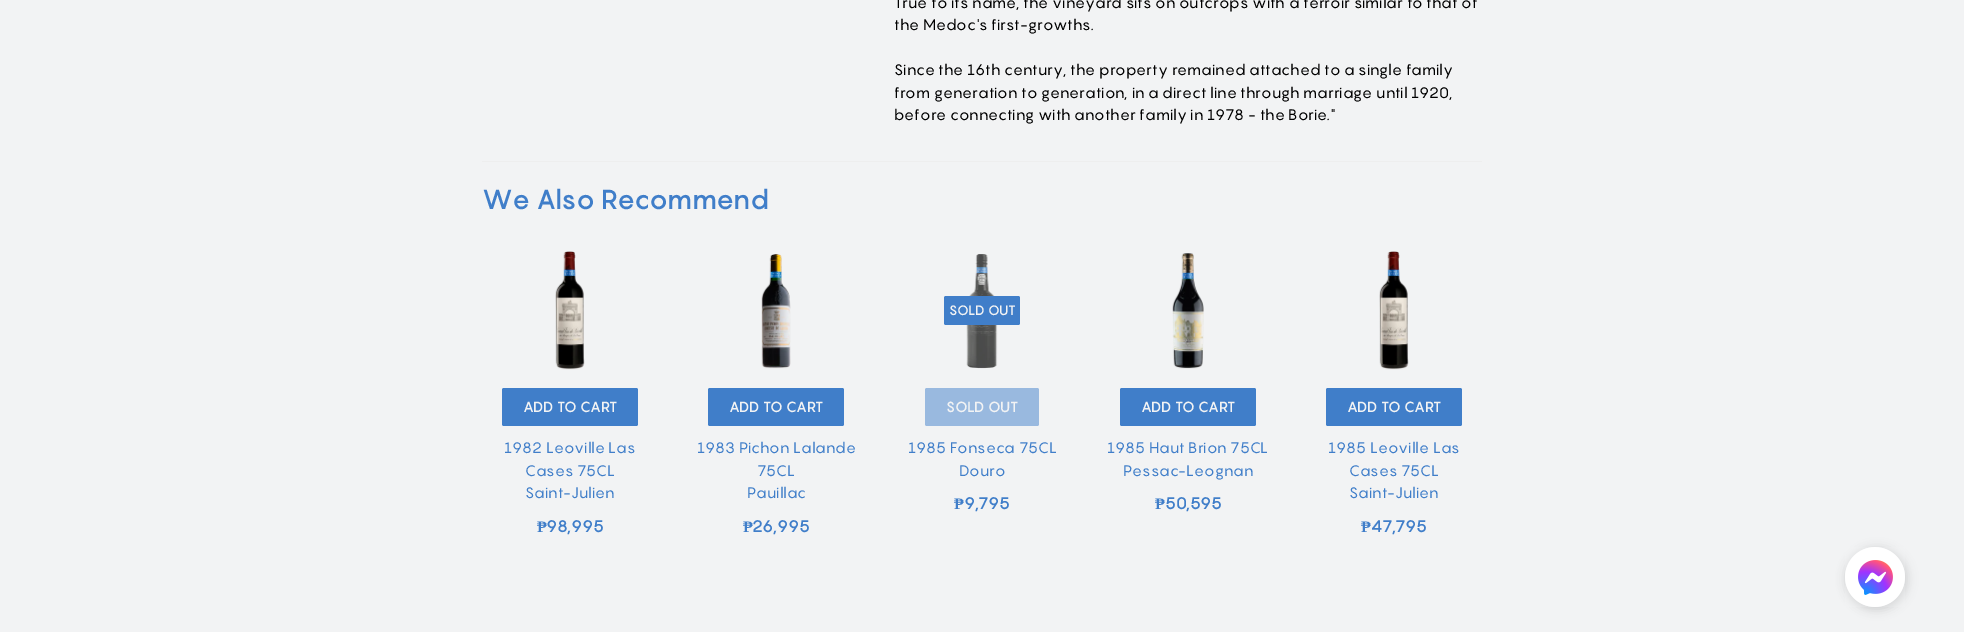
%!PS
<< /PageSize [1964 632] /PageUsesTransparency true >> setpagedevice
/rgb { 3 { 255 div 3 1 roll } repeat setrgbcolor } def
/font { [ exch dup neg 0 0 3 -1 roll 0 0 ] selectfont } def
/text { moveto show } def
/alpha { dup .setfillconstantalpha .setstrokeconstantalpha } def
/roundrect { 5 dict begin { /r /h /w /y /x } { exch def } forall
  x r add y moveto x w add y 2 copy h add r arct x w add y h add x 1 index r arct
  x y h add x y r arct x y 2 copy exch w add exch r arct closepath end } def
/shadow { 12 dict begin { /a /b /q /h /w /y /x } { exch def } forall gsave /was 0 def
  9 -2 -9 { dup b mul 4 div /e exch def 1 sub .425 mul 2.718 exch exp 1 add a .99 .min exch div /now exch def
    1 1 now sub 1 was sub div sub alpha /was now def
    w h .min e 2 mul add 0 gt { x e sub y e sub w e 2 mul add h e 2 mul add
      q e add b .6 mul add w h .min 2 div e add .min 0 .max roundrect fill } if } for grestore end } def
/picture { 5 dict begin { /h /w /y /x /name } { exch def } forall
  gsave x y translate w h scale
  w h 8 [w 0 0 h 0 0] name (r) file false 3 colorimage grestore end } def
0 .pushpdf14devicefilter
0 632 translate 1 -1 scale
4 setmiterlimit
242 243 244 rgb
0 0 1964 632 rectfill
238 238 238 rgb
482 161 1000 1 rectfill
(img_01.rgb) 555 251 30 119 picture
64 126 201 rgb
502 388 136 38 2 roundrect fill
(img_02.rgb) 761 254 30 115 picture
708 388 136 38 2 roundrect fill
(img_03.rgb) 966 254 32 115 picture
944 296 76 29 2 roundrect fill
153 185 223 rgb
925 388 114 38 2 roundrect fill
(img_04.rgb) 1172 253 32 116 picture
64 126 201 rgb
1120 388 136 38 2 roundrect fill
(img_01.rgb) 1379 251 30 119 picture
1326 388 136 38 2 roundrect fill
0 0 0 rgb
1845 547 64 64 32 4.5 0.07 shadow
1845 549 60 60 30 5 0.05 shadow
(img_05.rgb) 1845 547 60 60 picture
/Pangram-Regular 15 font
(True to its name, the vineyard sits on outcrops with a terroir similar to that of) 894 8 text
(the Medoc's first-growths.) 894 30 text
(Since the 16th century, the property remained attached to a single family) 894 75 text
(from generation to generation, in a direct line through marriage until 1920,) 894 98 text
(before connecting with another family in 1978 - the Borie.") 894 120 text
/Pangram-Bold 26 font
64 126 201 rgb
(We Also Recommend) 482 209 text
/Pangram-Bold 14 font
242 243 244 rgb
(ADD TO CART) 523 412 text
/Pangram-Regular 15 font
64 126 201 rgb
(1982 Leoville Las) 504 453 text
(Cases 75CL) 525 476 text
(Saint-Julien) 525 498 text
/LiberationSerif-Bold 16 font
(₱) 537 532 text
/Pangram-Bold 16 font
(98,995) 546 532 text
/Pangram-Bold 14 font
242 243 244 rgb
(ADD TO CART) 729 412 text
/Pangram-Regular 15 font
64 126 201 rgb
(1983 Pichon Lalande) 697 453 text
(75CL) 757 476 text
(Pauillac) 747 498 text
/LiberationSerif-Bold 16 font
(₱) 743 532 text
/Pangram-Bold 16 font
(26,995) 752 532 text
/Pangram-Bold 13 font
242 243 244 rgb
(SOLD OUT) 949 315 text
/Pangram-Bold 14 font
(SOLD OUT) 946 412 text
/Pangram-Regular 15 font
64 126 201 rgb
(1985 Fonseca 75CL) 908 453 text
(Douro) 959 476 text
/LiberationSerif-Bold 16 font
(₱) 954 509 text
/Pangram-Bold 16 font
(9,795) 964 509 text
/Pangram-Bold 14 font
242 243 244 rgb
(ADD TO CART) 1141 412 text
/Pangram-Regular 15 font
64 126 201 rgb
(1985 Haut Brion 75CL) 1107 453 text
(Pessac-Leognan) 1123 476 text
/LiberationSerif-Bold 16 font
(₱) 1155 509 text
/Pangram-Bold 16 font
(50,595) 1165 509 text
/Pangram-Bold 14 font
242 243 244 rgb
(ADD TO CART) 1347 412 text
/Pangram-Regular 15 font
64 126 201 rgb
(1985 Leoville Las) 1328 453 text
(Cases 75CL) 1349 476 text
(Saint-Julien) 1349 498 text
/LiberationSerif-Bold 16 font
(₱) 1361 532 text
/Pangram-Bold 16 font
(47,795) 1371 532 text
.poppdf14devicefilter showpage
